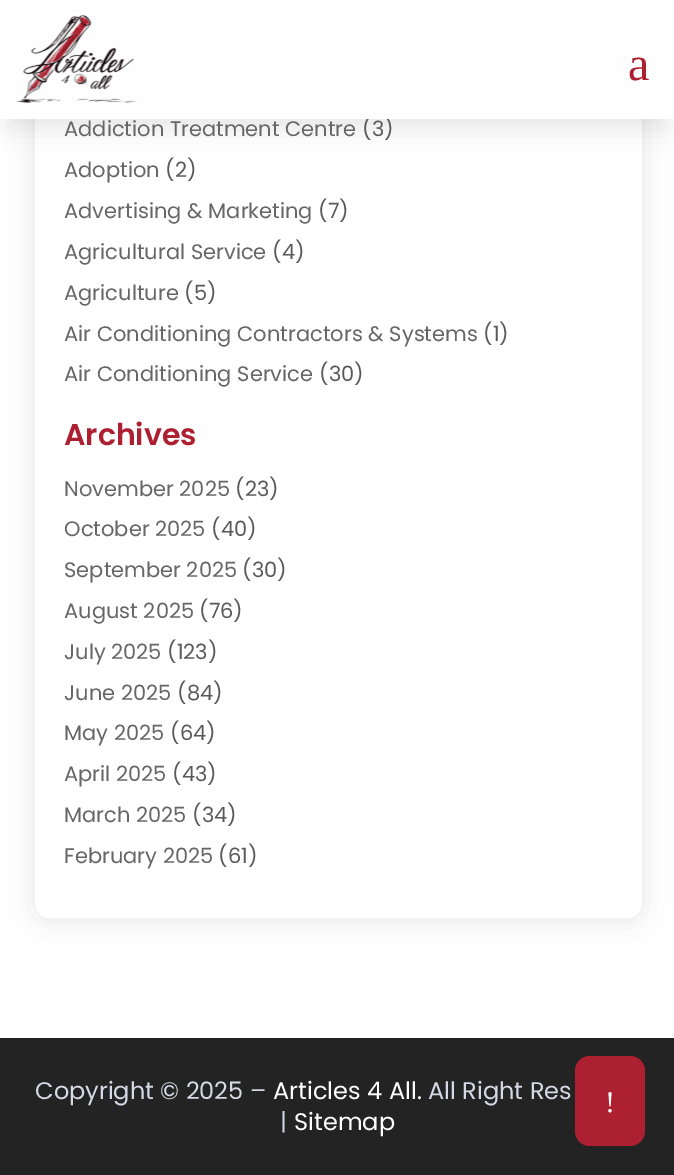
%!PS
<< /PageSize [674 1175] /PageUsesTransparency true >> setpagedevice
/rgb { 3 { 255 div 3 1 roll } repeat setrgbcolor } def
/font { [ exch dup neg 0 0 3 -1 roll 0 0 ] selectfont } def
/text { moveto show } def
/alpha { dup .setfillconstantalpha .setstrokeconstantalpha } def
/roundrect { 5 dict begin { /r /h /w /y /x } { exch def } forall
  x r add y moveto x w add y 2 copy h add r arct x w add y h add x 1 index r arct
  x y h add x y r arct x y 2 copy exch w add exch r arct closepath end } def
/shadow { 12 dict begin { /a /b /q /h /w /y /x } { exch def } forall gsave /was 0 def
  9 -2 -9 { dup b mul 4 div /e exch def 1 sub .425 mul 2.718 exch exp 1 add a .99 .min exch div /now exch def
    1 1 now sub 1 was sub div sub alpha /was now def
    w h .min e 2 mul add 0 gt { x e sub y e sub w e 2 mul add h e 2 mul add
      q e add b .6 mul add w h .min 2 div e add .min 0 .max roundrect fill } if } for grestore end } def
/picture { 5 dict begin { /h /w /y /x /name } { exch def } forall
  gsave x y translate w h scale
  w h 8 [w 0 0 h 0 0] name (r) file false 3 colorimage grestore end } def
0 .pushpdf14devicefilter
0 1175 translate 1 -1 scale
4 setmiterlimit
255 255 255 rgb
0 0 674 1175 rectfill
0 0 0 rgb
35 -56 607 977 15 13.5 0.1 shadow
255 255 255 rgb
35 -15 607 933 15 roundrect fill
0 0 0 rgb
9 27 657 101 0 13.5 0.1 shadow
35 35 35 rgb
0 1038 674 137 rectfill
173 32 49 rgb
575 1056 70 90 15 roundrect fill
/Poppins-Regular 21 font
102 102 102 rgb
(Addiction Treatment Centre) 64 136 text
89 89 89 rgb
(\(3\)) 362 136 text
254 254 254 rgb
0 0 674 119 rectfill
/LiberationSerif-Regular 48 font
173 32 49 rgb
(a) 628 80 text
(img_01.rgb) 16 15 121 88 picture
/Poppins-Regular 21 font
102 102 102 rgb
(Adoption) 64 177 text
89 89 89 rgb
(\(2\)) 165 177 text
102 102 102 rgb
(Advertising & Marketing) 64 218 text
89 89 89 rgb
(\(7\)) 318 218 text
102 102 102 rgb
(Agricultural Service) 64 259 text
89 89 89 rgb
(\(4\)) 272 259 text
102 102 102 rgb
(Agriculture) 64 300 text
89 89 89 rgb
(\(5\)) 184 300 text
102 102 102 rgb
(Air Conditioning Contractors & Systems) 64 341 text
89 89 89 rgb
(\(1\)) 483 341 text
102 102 102 rgb
(Air Conditioning Service) 64 381 text
89 89 89 rgb
(\(30\)) 319 381 text
/Poppins-SemiBold 30 font
173 32 49 rgb
(Archives) 64 445 text
/Poppins-Regular 21 font
102 102 102 rgb
(November 2025) 64 496 text
89 89 89 rgb
(\(23\)) 235 496 text
gsave
65 468 547 405 rectclip
102 102 102 rgb
(October 2025) 64 536 text
grestore
(\(40\)) 211 536 text
102 102 102 rgb
(September 2025) 64 577 text
89 89 89 rgb
(\(30\)) 242 577 text
102 102 102 rgb
(August 2025) 64 618 text
89 89 89 rgb
(\(76\)) 199 618 text
102 102 102 rgb
(July 2025) 64 659 text
89 89 89 rgb
(\(123\)) 167 659 text
102 102 102 rgb
(June 2025) 64 700 text
89 89 89 rgb
(\(84\)) 177 700 text
102 102 102 rgb
(May 2025) 64 740 text
89 89 89 rgb
(\(64\)) 170 740 text
102 102 102 rgb
(April 2025) 64 781 text
89 89 89 rgb
(\(43\)) 172 781 text
102 102 102 rgb
(March 2025) 64 822 text
89 89 89 rgb
(\(34\)) 192 822 text
102 102 102 rgb
(February 2025) 64 863 text
89 89 89 rgb
(\(61\)) 218 863 text
/Poppins-Regular 24 font
213 216 229 rgb
(Copyright © 2025 –) 35 1099 text
255 255 255 rgb
(Articles 4 All.) 273 1099 text
213 216 229 rgb
(All Right Res) 428 1099 text
(|) 280 1130 text
255 255 255 rgb
(Sitemap) 294 1130 text
/LiberationSerif-Regular 30 font
(!) 605 1112 text
.poppdf14devicefilter showpage
